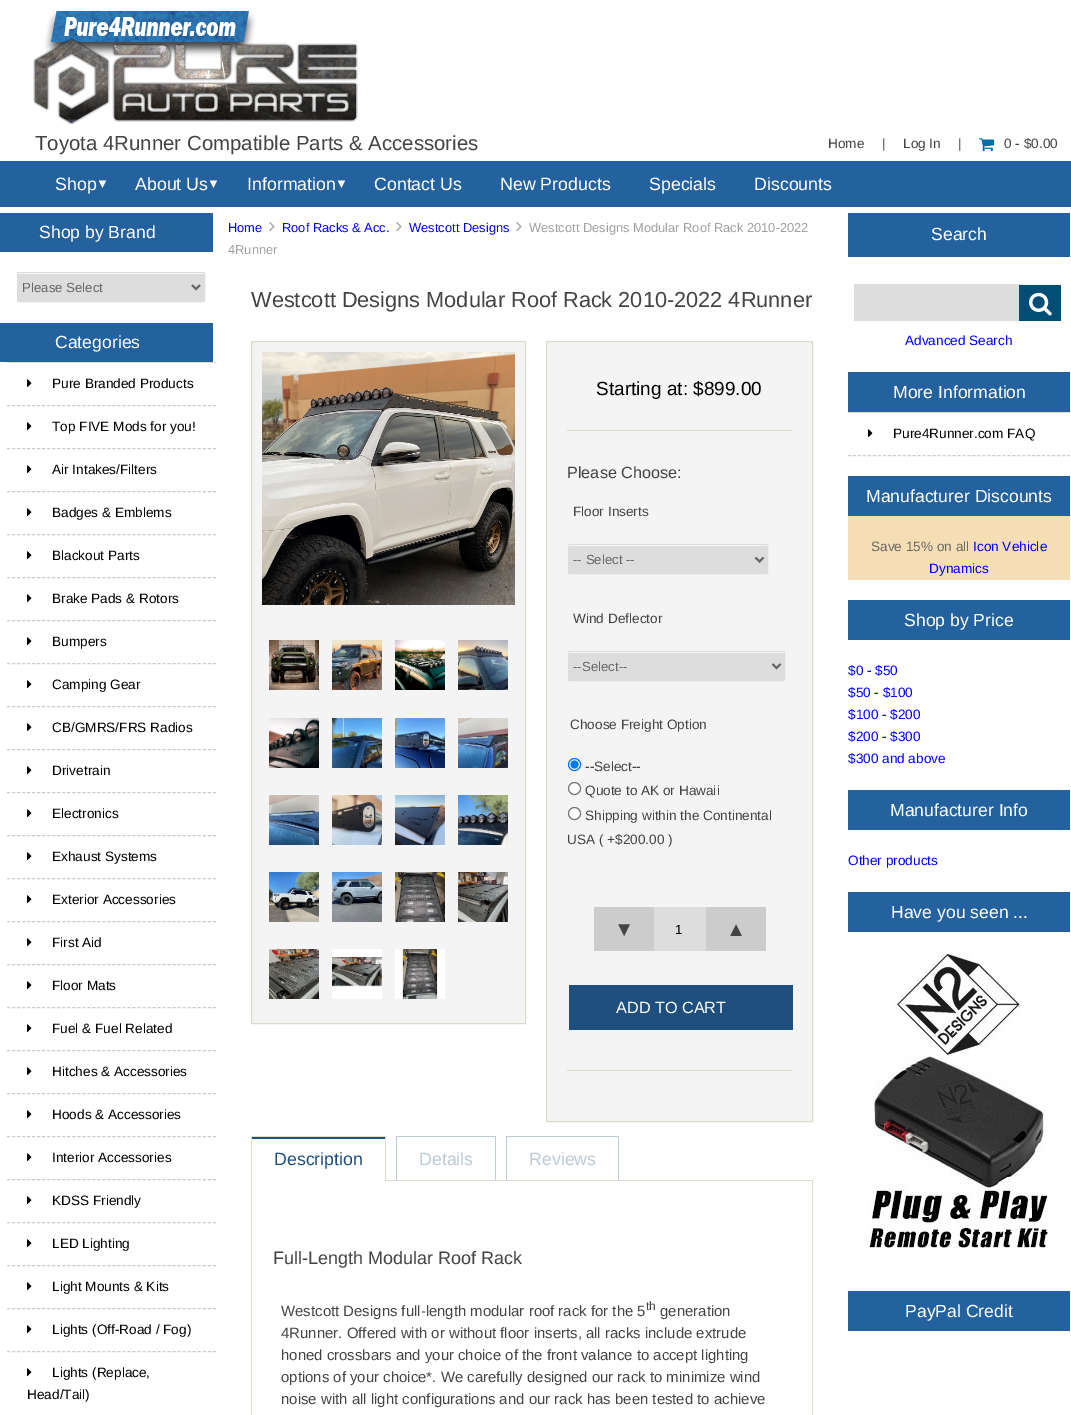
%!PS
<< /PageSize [1071 1415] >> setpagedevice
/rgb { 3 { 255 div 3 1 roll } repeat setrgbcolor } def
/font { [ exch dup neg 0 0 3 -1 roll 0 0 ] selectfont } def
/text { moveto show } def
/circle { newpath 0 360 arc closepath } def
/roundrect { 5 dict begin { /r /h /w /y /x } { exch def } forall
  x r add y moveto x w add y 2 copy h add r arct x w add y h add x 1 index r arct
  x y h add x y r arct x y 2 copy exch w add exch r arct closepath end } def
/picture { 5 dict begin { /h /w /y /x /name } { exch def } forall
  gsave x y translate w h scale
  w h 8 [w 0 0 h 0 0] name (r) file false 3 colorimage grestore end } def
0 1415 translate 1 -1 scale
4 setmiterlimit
255 255 255 rgb
0 0 1071 1415 rectfill
(img_01.rgb) 33 10 325 115 picture
(img_02.rgb) 979 138 16 14 picture
36 98 159 rgb
0 161 1071 46 rectfill
0 213 213 39 rectfill
221 221 222 rgb
17 272 188 30 2 roundrect fill
255 255 255 rgb
19 274 moveto 185 0 rlineto 0 1 rlineto 0 -1 0 -2 -1 -2 rcurveto -185 0 rlineto 0 2 rlineto 0 -1 0 -1 1 -1 rcurveto closepath fill
221 221 221 rgb
17.5 272.5 187 29 1.5 roundrect stroke
102 102 102 rgb
2 setlinewidth
192 285 moveto 4 4 rlineto 4 -4 rlineto stroke
36 98 159 rgb
0 323 213 39 rectfill
219 219 206 rgb
7 362 209 1 rectfill
204 204 204 rgb
1 setlinewidth
[3 2.02] 0 setdash
7 405.5 moveto 209 0 rlineto stroke
(img_03.rgb) 27 379 5 8 picture
7 448.5 moveto 209 0 rlineto stroke
(img_03.rgb) 27 422 5 8 picture
7 491.5 moveto 209 0 rlineto stroke
(img_03.rgb) 27 465 5 8 picture
7 534.5 moveto 209 0 rlineto stroke
(img_03.rgb) 27 508 5 8 picture
7 577.5 moveto 209 0 rlineto stroke
(img_03.rgb) 27 551 5 8 picture
7 620.5 moveto 209 0 rlineto stroke
(img_03.rgb) 27 594 5 8 picture
7 663.5 moveto 209 0 rlineto stroke
(img_03.rgb) 27 637 5 8 picture
7 706.5 moveto 209 0 rlineto stroke
(img_03.rgb) 27 680 5 8 picture
7 749.5 moveto 209 0 rlineto stroke
(img_03.rgb) 27 723 5 8 picture
7 792.5 moveto 209 0 rlineto stroke
(img_03.rgb) 27 766 5 8 picture
7 835.5 moveto 209 0 rlineto stroke
(img_03.rgb) 27 809 5 8 picture
7 878.5 moveto 209 0 rlineto stroke
(img_03.rgb) 27 852 5 8 picture
7 921.5 moveto 209 0 rlineto stroke
(img_03.rgb) 27 895 5 8 picture
7 964.5 moveto 209 0 rlineto stroke
(img_03.rgb) 27 938 5 8 picture
7 1007.5 moveto 209 0 rlineto stroke
(img_03.rgb) 27 981 5 8 picture
7 1050.5 moveto 209 0 rlineto stroke
(img_03.rgb) 27 1024 5 8 picture
7 1093.5 moveto 209 0 rlineto stroke
(img_03.rgb) 27 1067 5 8 picture
7 1136.5 moveto 209 0 rlineto stroke
(img_03.rgb) 27 1110 5 8 picture
7 1179.5 moveto 209 0 rlineto stroke
(img_03.rgb) 27 1153 5 8 picture
7 1222.5 moveto 209 0 rlineto stroke
(img_03.rgb) 27 1196 5 8 picture
7 1265.5 moveto 209 0 rlineto stroke
(img_03.rgb) 27 1239 5 8 picture
7 1308.5 moveto 209 0 rlineto stroke
(img_03.rgb) 27 1282 5 8 picture
7 1351.5 moveto 209 0 rlineto stroke
(img_03.rgb) 27 1325 5 8 picture
(img_03.rgb) 27 1368 5 8 picture
(img_04.rgb) 269 222 6 10 picture
(img_04.rgb) 396 222 6 10 picture
(img_04.rgb) 516 222 6 10 picture
244 244 244 rgb
251.5 341.5 moveto 274 0 rlineto 0 682 rlineto -274 0 rlineto closepath gsave fill grestore
219 219 206 rgb
[] 0 setdash
stroke
(img_05.rgb) 262 352 253 253 picture
(img_06.rgb) 269 640 50 50 picture
(img_07.rgb) 332 640 50 50 picture
(img_08.rgb) 395 640 50 50 picture
(img_09.rgb) 458 640 50 50 picture
(img_10.rgb) 269 718 50 50 picture
(img_11.rgb) 332 718 50 50 picture
(img_12.rgb) 395 718 50 50 picture
(img_13.rgb) 458 718 50 50 picture
(img_14.rgb) 269 795 50 50 picture
(img_15.rgb) 332 795 50 50 picture
(img_16.rgb) 395 795 50 50 picture
(img_17.rgb) 458 795 50 50 picture
(img_18.rgb) 269 872 50 50 picture
(img_19.rgb) 332 872 50 50 picture
(img_20.rgb) 395 872 50 50 picture
(img_21.rgb) 458 872 50 50 picture
(img_22.rgb) 269 949 50 50 picture
(img_23.rgb) 332 949 50 50 picture
(img_24.rgb) 395 949 50 50 picture
244 244 244 rgb
546.5 341.5 moveto 266 0 rlineto 0 780 rlineto -266 0 rlineto closepath gsave fill grestore
219 219 206 rgb
stroke
567 430 225 1 rectfill
221 221 222 rgb
568 544 200 30 2 roundrect fill
255 255 255 rgb
570 546 moveto 197 0 rlineto 0 1 rlineto 0 -1 0 -2 -1 -2 rcurveto -197 0 rlineto 0 2 rlineto 0 -1 0 -1 1 -1 rcurveto closepath fill
221 221 221 rgb
568.5 544.5 199 29 1.5 roundrect stroke
102 102 102 rgb
2 setlinewidth
755.5 557.5 moveto 4 4 rlineto 4 -4 rlineto stroke
221 221 222 rgb
568 651 217 30 2 roundrect fill
255 255 255 rgb
570 653 moveto 213 0 rlineto 1 1 rlineto 0 0 0 -2 -1 -2 rcurveto -214 0 rlineto 0 2 rlineto closepath fill
221 221 221 rgb
1 setlinewidth
568.5 651.5 216 29 1.5 roundrect stroke
102 102 102 rgb
2 setlinewidth
772.5 664 moveto 4 4 rlineto 4 -4 rlineto stroke
255 255 255 rgb
574.5 764.5 6 circle gsave fill grestore
0 117 255 rgb
1 setlinewidth
stroke
574.5 764.5 4 circle fill
255 255 255 rgb
574.5 788.5 6 circle gsave fill grestore
118 118 118 rgb
stroke
255 255 255 rgb
574.5 813.5 6 circle gsave fill grestore
118 118 118 rgb
stroke
219 219 206 rgb
567 1070 225 1 rectfill
204 204 204 rgb
594 907 60 44 rectfill
221 221 222 rgb
654 907 52 44 rectfill
204 204 204 rgb
706 907 60 44 rectfill
31 79 125 rgb
569 985 224 45 rectfill
252 1137 133 2 rectfill
219 219 206 rgb
251 1136 135 1 rectfill
385 1136 1 45 rectfill
251 1136 1 45 rectfill
190 203 210 rgb
396 1136 100 1 rectfill
495 1136 1 45 rectfill
396 1136 1 45 rectfill
506 1136 113 1 rectfill
618 1136 1 45 rectfill
506 1136 1 45 rectfill
219 219 206 rgb
385 1180 428 1 rectfill
812 1181 1 234 rectfill
251 1181 1 234 rectfill
36 98 159 rgb
848 213 222 44 rectfill
221 221 222 rgb
854 284 169 37 rectfill
0 77 118 rgb
1019 285 42 36 rectfill
(img_25.rgb) 1029 292 23 24 picture
36 98 159 rgb
848 372 222 40 rectfill
219 219 206 rgb
848 412 222 1 rectfill
204 204 204 rgb
[3 1.98] 0 setdash
848 455.5 moveto 222 0 rlineto stroke
(img_03.rgb) 868 429 5 8 picture
36 98 159 rgb
848 476 222 40 rectfill
245 222 179 rgb
848 516 222 64 rectfill
36 98 159 rgb
848 600 222 40 rectfill
848 790 222 40 rectfill
848 892 222 40 rectfill
(img_26.rgb) 869 952 180 296 picture
848 1291 222 40 rectfill
/LiberationSans-Regular 20.4 font
68 68 68 rgb
(Toyota 4Runner Compatible Parts & Accessories) 35 150 text
/LiberationSans-Regular 13.6 font
(Home) 828 148 text
(|) 882 148 text
(Log In) 903 148 text
(|) 958 148 text
(0 - $0.00) 1004 148 text
/LiberationSans-Regular 17.75 font
255 255 253 rgb
(Shop) 55 190 text
/LiberationSans-Italic 13 font
(▼) 96 188 text
/LiberationSans-Regular 17.75 font
(About Us) 135 190 text
/LiberationSans-Italic 13 font
(▼) 207 188 text
/LiberationSans-Regular 17.75 font
(Information) 247 190 text
/LiberationSans-Italic 13 font
(▼) 335 188 text
/LiberationSans-Regular 17.75 font
(Contact Us) 374 190 text
(New Products) 500 190 text
(Specials) 649 190 text
(Discounts) 754 190 text
/LiberationSans-Regular 17.6 font
(Shop by Brand) 39 238 text
/LiberationSans-Regular 13.25 font
104 104 104 rgb
(Please Select) 22 292 text
/LiberationSans-Regular 17.6 font
255 255 253 rgb
(Categories) 55 348 text
/LiberationSans-Regular 13.6 font
0 0 0 rgb
(Pure Branded Products) 52 388 text
(Top FIVE Mods for you!) 52 431 text
(Air Intakes/Filters) 52 474 text
(Badges & Emblems) 52 517 text
(Blackout Parts) 52 560 text
(Brake Pads & Rotors) 52 603 text
(Bumpers) 52 646 text
(Camping Gear) 52 689 text
(CB/GMRS/FRS Radios) 52 732 text
(Drivetrain) 52 775 text
(Electronics) 52 818 text
(Exhaust Systems) 52 861 text
(Exterior Accessories) 52 904 text
(First Aid) 52 947 text
(Floor Mats) 52 990 text
(Fuel & Fuel Related) 52 1033 text
(Hitches & Accessories) 52 1076 text
(Hoods & Accessories) 52 1119 text
(Interior Accessories) 52 1162 text
(KDSS Friendly) 52 1205 text
(LED Lighting) 52 1248 text
(Light Mounts & Kits) 52 1291 text
(Lights \(Off-Road / Fog\)) 52 1334 text
(Lights \(Replace,) 52 1377 text
(Head/Tail\)) 27 1399 text
/LiberationSans-Regular 12.9 font
0 0 255 rgb
(Home) 228 232 text
(Roof Racks & Acc.) 282 232 text
(Westcott Designs) 409 232 text
160 160 160 rgb
(Westcott Designs Modular Roof Rack 2010-2022) 529 232 text
(4Runner) 228 254 text
/LiberationSans-Regular 21.75 font
68 68 68 rgb
(Westcott Designs Modular Roof Rack 2010-2022 4Runner) 251 307 text
/LiberationSans-Regular 19 font
0 0 0 rgb
(Starting at: $899.00) 596 395 text
/LiberationSans-Regular 16.25 font
68 68 68 rgb
(Please Choose:) 567 478 text
/LiberationSans-Regular 13.6 font
(Floor Inserts) 573 516 text
/LiberationSans-Regular 13.25 font
104 104 104 rgb
(-- Select --) 573 564 text
/LiberationSans-Regular 13.6 font
68 68 68 rgb
(Wind Deflector) 573 623 text
/LiberationSans-Regular 13.25 font
104 104 104 rgb
(--Select--) 573 671 text
/LiberationSans-Regular 13.6 font
68 68 68 rgb
(Choose Freight Option) 570 729 text
(--Select--) 585 771 text
(Quote to AK or Hawaii) 585 795 text
(Shipping within the Continental) 585 820 text
(USA \( +$200.00 \)) 567 844 text
/LiberationSans-Regular 20.4 font
(▼) 614 936 text
/LiberationSans-Regular 13.25 font
0 0 0 rgb
(1) 675 934 text
/LiberationSans-Regular 20.4 font
68 68 68 rgb
(▲) 726 936 text
/LiberationSans-Regular 16.25 font
255 255 253 rgb
(ADD TO CART) 616 1013 text
/LiberationSans-Regular 17.75 font
31 79 125 rgb
(Description) 274 1165 text
190 203 210 rgb
(Details) 419 1165 text
(Reviews) 529 1165 text
/LiberationSans-Regular 18 font
68 68 68 rgb
(Full-Length Modular Roof Rack) 273 1264 text
/LiberationSans-Regular 14.95 font
(Westcott Designs full-length modular roof rack for the 5) 281 1316 text
/LiberationSans-Regular 12 font
(th) 646 1310 text
/LiberationSans-Regular 14.95 font
(generation) 660 1316 text
(4Runner. Offered with or without floor inserts, all racks include extrude) 281 1338 text
(honed crossbars and your choice of the front valance to accept lighting) 281 1360 text
(options of your choice*. We carefully designed our rack to minimize wind) 281 1382 text
(noise with all light configurations and our rack has been tested to achieve) 281 1404 text
/LiberationSans-Regular 17.6 font
255 255 253 rgb
(Search) 931 240 text
/LiberationSans-Regular 13.6 font
0 0 255 rgb
(Advanced Search) 905 345 text
/LiberationSans-Regular 17.6 font
255 255 253 rgb
(More Information) 893 398 text
/LiberationSans-Regular 13.6 font
0 0 0 rgb
(Pure4Runner.com FAQ) 893 438 text
/LiberationSans-Regular 17.6 font
255 255 253 rgb
(Manufacturer Discounts) 866 502 text
/LiberationSans-Regular 13.6 font
104 104 104 rgb
(Save 15% on all) 871 551 text
0 0 255 rgb
(Icon Vehicle) 973 551 text
(Dynamics) 929 573 text
/LiberationSans-Regular 17.6 font
255 255 253 rgb
(Shop by Price) 904 626 text
/LiberationSans-Regular 13.6 font
0 0 255 rgb
($0 - $50) 848 675 text
($50 - $100) 848 697 text
($100 - $200) 848 719 text
($200 - $300) 848 741 text
($300 and above) 848 763 text
/LiberationSans-Regular 17.6 font
255 255 253 rgb
(Manufacturer Info) 890 816 text
/LiberationSans-Regular 13.6 font
0 0 255 rgb
(Other products) 848 865 text
/LiberationSans-Regular 17.6 font
255 255 253 rgb
(Have you seen ...) 891 918 text
(PayPal Credit) 905 1317 text
showpage
